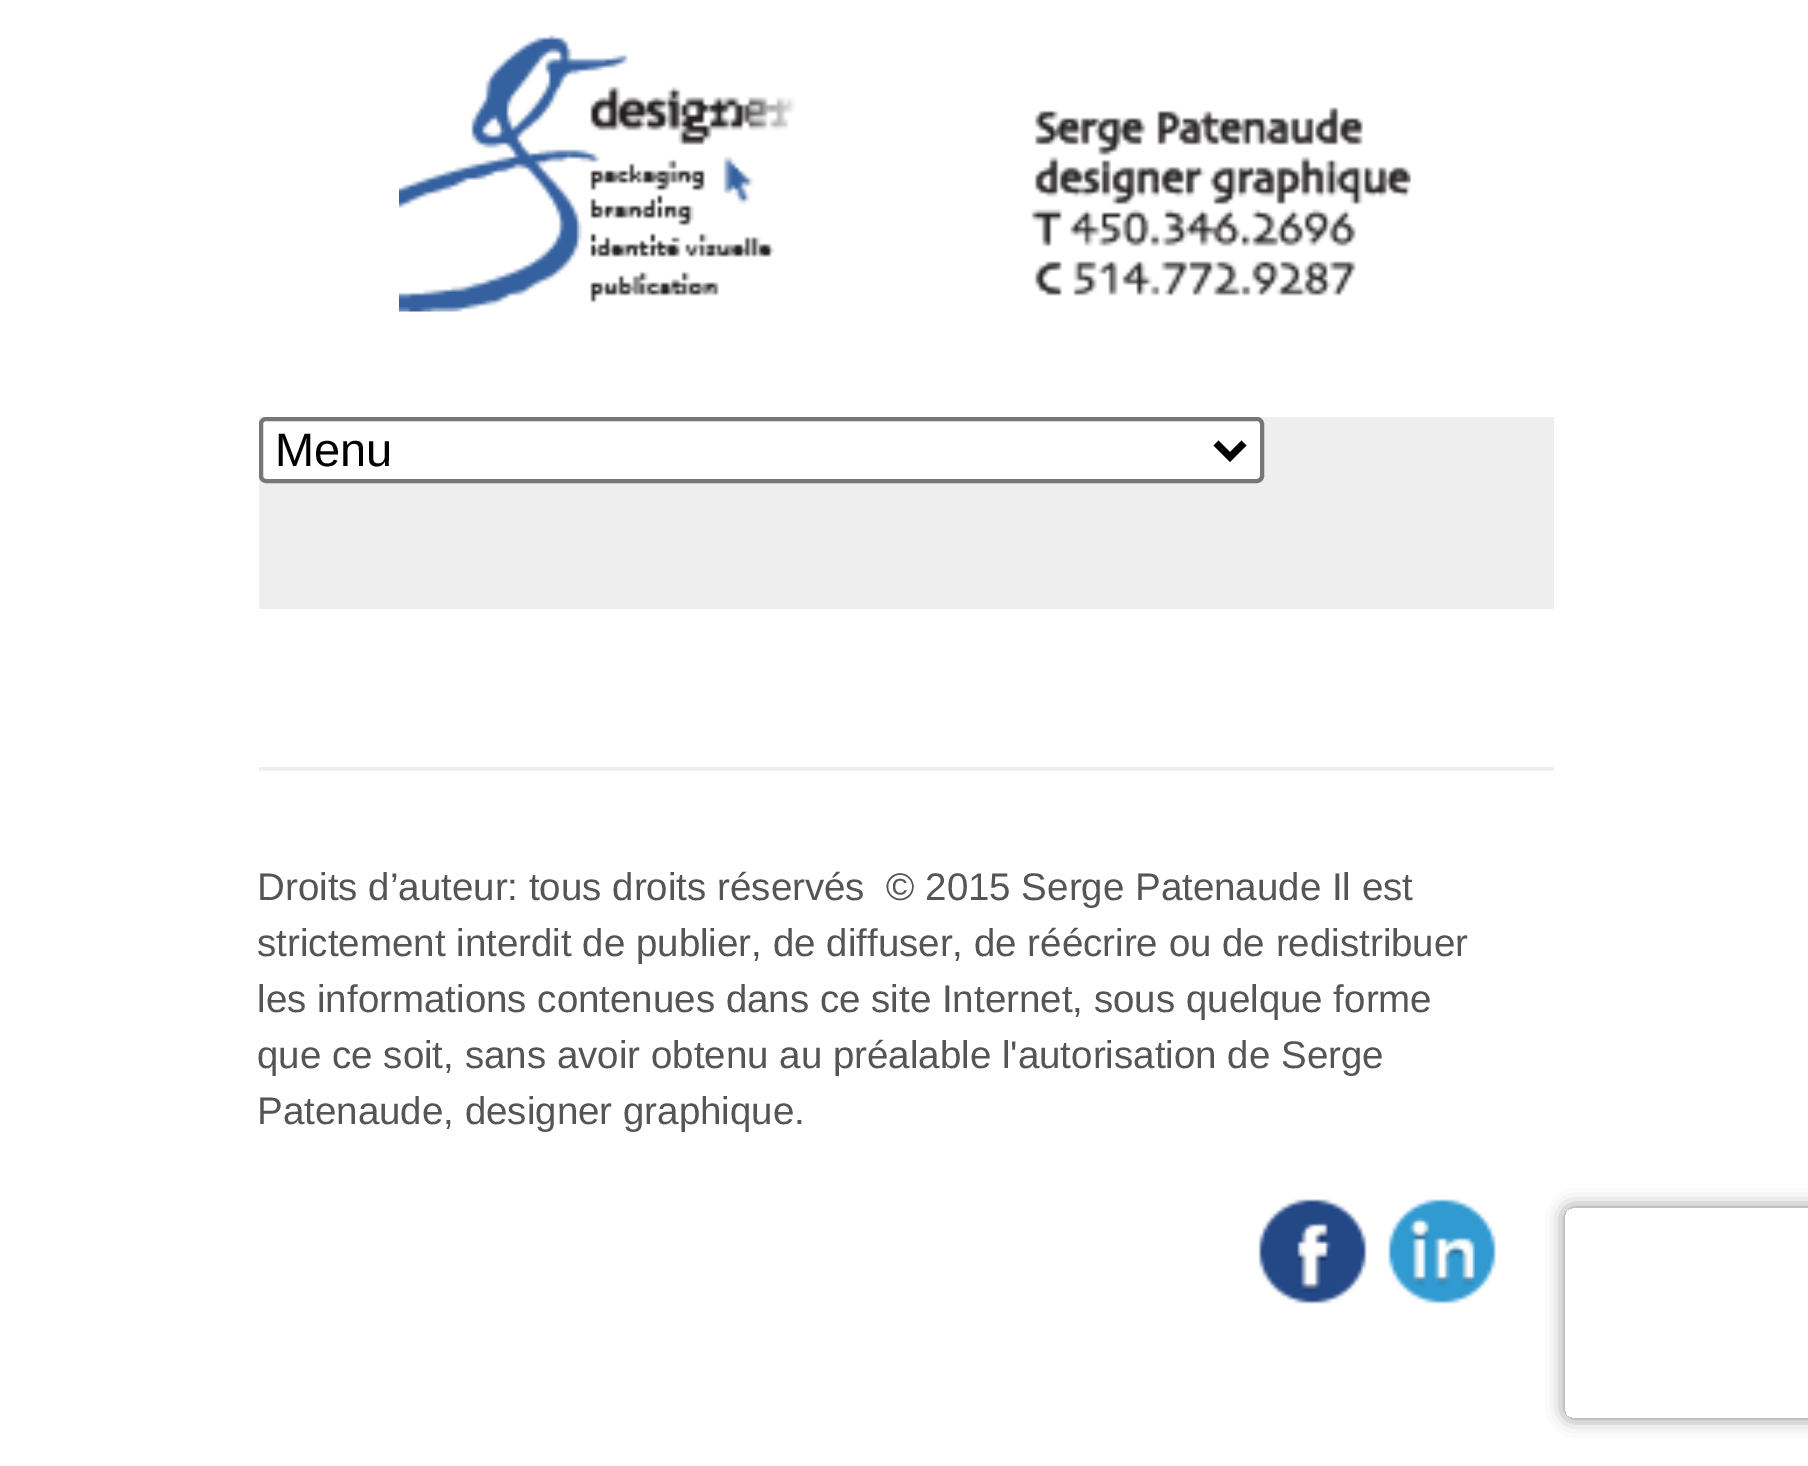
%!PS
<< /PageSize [1808 1466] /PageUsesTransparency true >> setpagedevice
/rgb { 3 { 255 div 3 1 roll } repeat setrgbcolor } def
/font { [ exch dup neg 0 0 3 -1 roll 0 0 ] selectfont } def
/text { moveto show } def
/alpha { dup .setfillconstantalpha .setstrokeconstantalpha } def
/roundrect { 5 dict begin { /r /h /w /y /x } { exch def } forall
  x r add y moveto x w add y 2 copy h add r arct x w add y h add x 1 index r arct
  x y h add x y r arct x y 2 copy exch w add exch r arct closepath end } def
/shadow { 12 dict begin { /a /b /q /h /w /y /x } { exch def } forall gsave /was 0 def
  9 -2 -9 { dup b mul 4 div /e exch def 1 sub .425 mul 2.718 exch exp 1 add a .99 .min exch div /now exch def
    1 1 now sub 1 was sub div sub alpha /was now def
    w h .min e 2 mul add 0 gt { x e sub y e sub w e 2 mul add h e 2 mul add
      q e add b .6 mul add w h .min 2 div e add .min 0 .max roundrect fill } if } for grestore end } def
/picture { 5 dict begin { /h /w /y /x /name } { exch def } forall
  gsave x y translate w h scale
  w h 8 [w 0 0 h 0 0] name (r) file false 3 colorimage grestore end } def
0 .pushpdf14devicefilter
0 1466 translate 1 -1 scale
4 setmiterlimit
255 255 255 rgb
0 0 1808 1466 rectfill
(img_01.rgb) 399 35 1012 277 picture
238 238 238 rgb
259 417 1295 192 rectfill
255 255 255 rgb
261 419 1001 62 5 roundrect gsave fill grestore
118 118 118 rgb
4 setlinewidth
stroke
0 0 0 rgb
7 setlinewidth
1216 443 moveto 14 14 rlineto 14 -14 rlineto stroke
238 238 238 rgb
259 767 1295 4 rectfill
(img_02.rgb) 1258 1199 109 105 picture
(img_03.rgb) 1388 1199 108 105 picture
gsave
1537 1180 moveto 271 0 rlineto 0 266 rlineto -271 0 rlineto closepath 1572 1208 moveto 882 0 rlineto 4 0 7 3 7 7 rcurveto 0 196 rlineto 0 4 -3 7 -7 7 rcurveto -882 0 rlineto -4 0 -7 -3 -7 -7 rcurveto 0 -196 rlineto 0 -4 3 -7 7 -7 rcurveto closepath eoclip newpath
128 128 128 rgb
1565 1208 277 210 7 9 1 shadow
grestore
/LiberationSans-Regular 47 font
0 0 0 rgb
(Menu) 275 466 text
/LiberationSans-Regular 38.5 font
85 85 85 rgb
(Droits d’auteur: tous droits réservés  © 2015 Serge Patenaude Il est) 257 900 text
(strictement interdit de publier, de diffuser, de réécrire ou de redistribuer) 257 956 text
(les informations contenues dans ce site Internet, sous quelque forme) 257 1012 text
(que ce soit, sans avoir obtenu au préalable l'autorisation de Serge) 257 1068 text
(Patenaude, designer graphique.) 257 1124 text
.poppdf14devicefilter showpage
